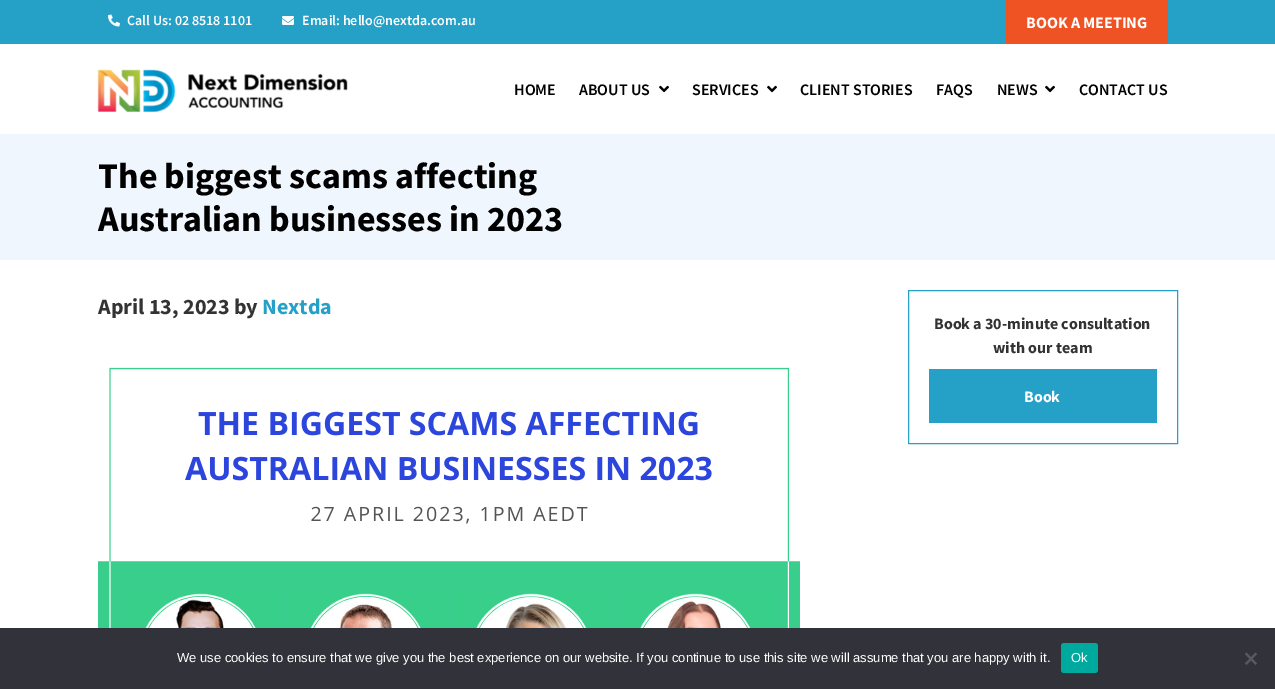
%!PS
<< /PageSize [1275 689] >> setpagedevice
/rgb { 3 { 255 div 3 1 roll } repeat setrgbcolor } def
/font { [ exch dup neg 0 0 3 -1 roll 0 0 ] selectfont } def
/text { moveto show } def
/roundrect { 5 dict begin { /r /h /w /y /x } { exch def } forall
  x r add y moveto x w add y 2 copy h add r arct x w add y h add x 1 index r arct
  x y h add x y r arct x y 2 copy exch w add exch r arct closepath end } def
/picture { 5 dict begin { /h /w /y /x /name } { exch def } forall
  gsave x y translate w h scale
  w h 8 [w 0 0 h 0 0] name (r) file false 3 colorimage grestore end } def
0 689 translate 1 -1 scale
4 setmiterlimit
255 255 255 rgb
0 0 1275 689 rectfill
37 161 200 rgb
0 0 1275 44 rectfill
(img_01.rgb) 108 14 12 13 picture
(img_02.rgb) 282 16 12 9 picture
240 83 35 rgb
1006 0 162 44 rectfill
(img_03.rgb) 97 69 251 43 picture
(img_04.rgb) 659 85 10 8 picture
(img_04.rgb) 767 85 10 8 picture
(img_04.rgb) 1045 85 10 8 picture
240 246 253 rgb
0 134 1275 126 rectfill
(img_05.rgb) 98 367 702 261 picture
37 161 200 rgb
908.5 290.5 269 153 rectstroke
929 369 228 54 rectfill
50 50 58 rgb
0 628 1275 61 rectfill
0 169 157 rgb
1061 643 37 30 3 roundrect fill
89 89 93 rgb
1255.5 652.5 moveto 1.5 1.5 rlineto -10.5 11 rlineto -1.5 -1.5 rlineto closepath fill
1245 654 moveto 1.5 -1.5 rlineto 10.5 11 rlineto -1.5 1.5 rlineto closepath fill
/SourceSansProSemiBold-SemiBold 14 font
255 255 255 rgb
(Call Us: 02 8518 1101) 127 25 text
(Email: hello@nextda.com.au) 302 25 text
/SourceSansPro-Bold 16 font
(BOOK A MEETING) 1026 28 text
/SourceSansProSemiBold-SemiBold 16 font
0 0 0 rgb
(HOME) 514 95 text
(ABOUT US) 579 95 text
(SERVICES) 692 95 text
(CLIENT STORIES) 800 95 text
(FAQS) 936 95 text
(NEWS) 997 95 text
(CONTACT US) 1079 95 text
/SourceSansPro-Bold 36 font
(The biggest scams affecting) 98 188 text
(Australian businesses in 2023) 98 231 text
/SourceSansPro-Bold 22 font
51 51 51 rgb
(April 13, 2023 by) 98 314 text
37 161 200 rgb
(Nextda) 262 314 text
/SourceSansPro-Bold 16 font
51 51 51 rgb
(Book a 30-minute consultation) 934 329 text
(with our team) 993 353 text
255 255 255 rgb
(Book) 1024 402 text
/LiberationSans-Regular 13 font
(We use cookies to ensure that we give you the best experience on our website. If you continue to use this site we will assume that you are happy with it.) 177 662 text
(Ok) 1071 662 text
showpage
